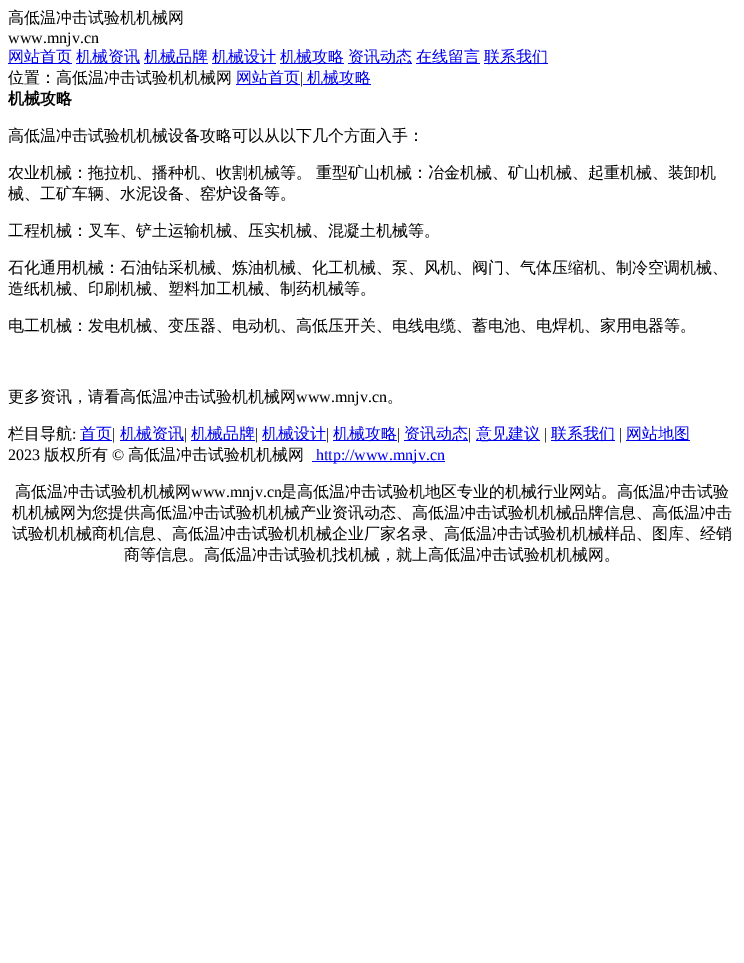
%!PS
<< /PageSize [744 963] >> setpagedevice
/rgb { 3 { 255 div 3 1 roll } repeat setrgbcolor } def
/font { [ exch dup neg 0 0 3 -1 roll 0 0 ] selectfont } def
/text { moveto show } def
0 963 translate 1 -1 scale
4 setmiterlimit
255 255 255 rgb
0 0 744 963 rectfill
0 0 238 rgb
8 63 64 1 rectfill
76 63 64 1 rectfill
144 63 64 1 rectfill
212 63 64 1 rectfill
280 63 64 1 rectfill
348 63 64 1 rectfill
416 63 64 1 rectfill
484 63 64 1 rectfill
236 84 64 1 rectfill
303 84 68 1 rectfill
80 440 32 1 rectfill
120 440 64 1 rectfill
191 440 64 1 rectfill
262 440 64 1 rectfill
333 440 64 1 rectfill
404 440 64 1 rectfill
476 440 64 1 rectfill
551 440 64 1 rectfill
626 440 64 1 rectfill
312 461 133 1 rectfill
/WenQuanYiZenHei-Medium 16 font
0 0 0 rgb
(高低温冲击试验机机械网) 8 23 text
/LiberationSerif-Regular 16 font
(www.mnjv.cn) 8 43 text
/WenQuanYiZenHei-Medium 16 font
0 0 238 rgb
(网站首页) 8 62 text
(机械资讯) 76 62 text
(机械品牌) 144 62 text
(机械设计) 212 62 text
(机械攻略) 280 62 text
(资讯动态) 348 62 text
(在线留言) 416 62 text
(联系我们) 484 62 text
0 0 0 rgb
(位置：高低温冲击试验机机械网) 8 83 text
0 0 238 rgb
(网站首页) 236 83 text
/LiberationSerif-Regular 16 font
0 0 0 rgb
(|) 300 83 text
/WenQuanYiZenHei-Medium 16 font
0 0 238 rgb
(机械攻略) 307 83 text
/WenQuanYiZenHei-Bold 16 font
0 0 0 rgb
(机械攻略) 8 104 text
/WenQuanYiZenHei-Medium 16 font
(高低温冲击试验机机械设备攻略可以从以下几个方面入手：) 8 141 text
8 178 moveto -1 0 32 (农业机械：拖拉机、播种机、收割机械等。 重型矿山机械：冶金机械、矿山机械、起重机械、装卸机) widthshow
(械、工矿车辆、水泥设备、窑炉设备等。) 8 199 text
(工程机械：叉车、铲土运输机械、压实机械、混凝土机械等。) 8 236 text
(石化通用机械：石油钻采机械、炼油机械、化工机械、泵、风机、阀门、气体压缩机、制冷空调机械、) 8 273 text
(造纸机械、印刷机械、塑料加工机械、制药机械等。) 8 294 text
(电工机械：发电机械、变压器、电动机、高低压开关、电线电缆、蓄电池、电焊机、家用电器等。) 8 331 text
(更多资讯，请看高低温冲击试验机机械网) 8 402 text
/LiberationSerif-Regular 16 font
(www.mnjv.cn) 296 402 text
/WenQuanYiZenHei-Medium 16 font
(。) 387 402 text
(栏目导航) 8 439 text
/LiberationSerif-Regular 16 font
(:) 72 439 text
/WenQuanYiZenHei-Medium 16 font
0 0 238 rgb
(首页) 80 439 text
/LiberationSerif-Regular 16 font
0 0 0 rgb
(|) 112 439 text
/WenQuanYiZenHei-Medium 16 font
0 0 238 rgb
(机械资讯) 120 439 text
/LiberationSerif-Regular 16 font
0 0 0 rgb
(|) 184 439 text
/WenQuanYiZenHei-Medium 16 font
0 0 238 rgb
(机械品牌) 191 439 text
/LiberationSerif-Regular 16 font
0 0 0 rgb
(|) 255 439 text
/WenQuanYiZenHei-Medium 16 font
0 0 238 rgb
(机械设计) 262 439 text
/LiberationSerif-Regular 16 font
0 0 0 rgb
(|) 326 439 text
/WenQuanYiZenHei-Medium 16 font
0 0 238 rgb
(机械攻略) 333 439 text
/LiberationSerif-Regular 16 font
0 0 0 rgb
(|) 397 439 text
/WenQuanYiZenHei-Medium 16 font
0 0 238 rgb
(资讯动态) 404 439 text
/LiberationSerif-Regular 16 font
0 0 0 rgb
(|) 468 439 text
/WenQuanYiZenHei-Medium 16 font
0 0 238 rgb
(意见建议) 476 439 text
/LiberationSerif-Regular 16 font
0 0 0 rgb
(|) 544 439 text
/WenQuanYiZenHei-Medium 16 font
0 0 238 rgb
(联系我们) 551 439 text
/LiberationSerif-Regular 16 font
0 0 0 rgb
(|) 619 439 text
/WenQuanYiZenHei-Medium 16 font
0 0 238 rgb
(网站地图) 626 439 text
/LiberationSerif-Regular 16 font
0 0 0 rgb
(2023) 8 460 text
/WenQuanYiZenHei-Medium 16 font
(版权所有) 44 460 text
/LiberationSerif-Regular 16 font
(©) 112 460 text
/WenQuanYiZenHei-Medium 16 font
(高低温冲击试验机机械网) 128 460 text
/LiberationSerif-Regular 16 font
0 0 238 rgb
(http://www.mnjv.cn) 316 460 text
/WenQuanYiZenHei-Medium 16 font
0 0 0 rgb
(高低温冲击试验机机械网) 15 497 text
/LiberationSerif-Regular 16 font
(www.mnjv.cn) 191 497 text
/WenQuanYiZenHei-Medium 16 font
(是高低温冲击试验机地区专业的机械行业网站。高低温冲击试验) 281 497 text
(机机械网为您提供高低温冲击试验机机械产业资讯动态、高低温冲击试验机机械品牌信息、高低温冲击) 12 518 text
(试验机机械商机信息、高低温冲击试验机机械企业厂家名录、高低温冲击试验机机械样品、图库、经销) 12 539 text
(商等信息。高低温冲击试验机找机械，就上高低温冲击试验机机械网。) 124 560 text
showpage
